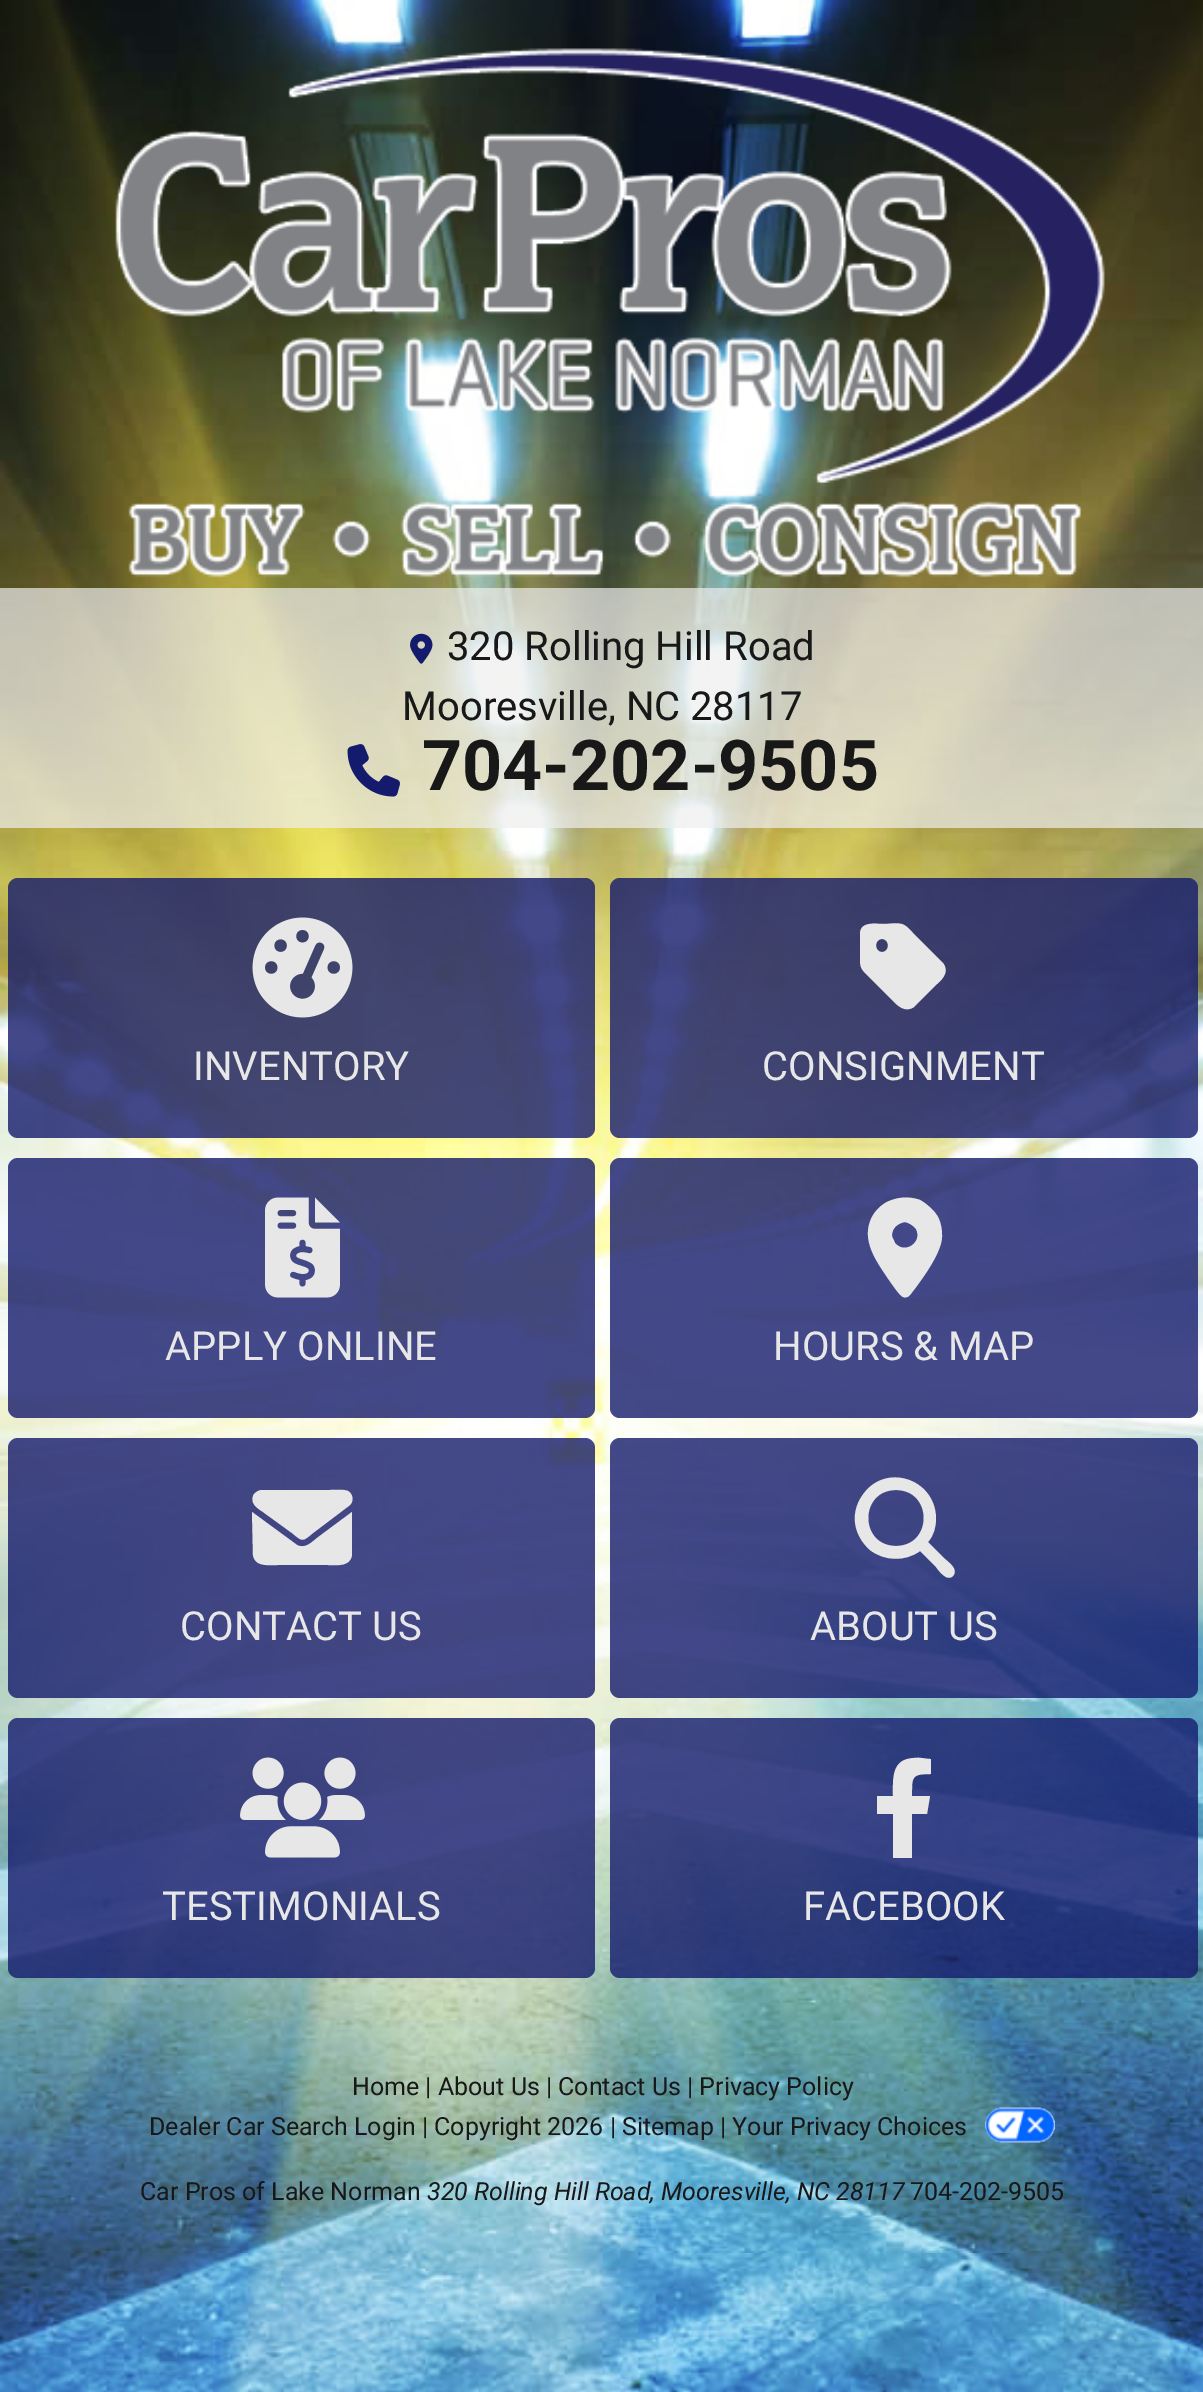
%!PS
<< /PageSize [1203 2392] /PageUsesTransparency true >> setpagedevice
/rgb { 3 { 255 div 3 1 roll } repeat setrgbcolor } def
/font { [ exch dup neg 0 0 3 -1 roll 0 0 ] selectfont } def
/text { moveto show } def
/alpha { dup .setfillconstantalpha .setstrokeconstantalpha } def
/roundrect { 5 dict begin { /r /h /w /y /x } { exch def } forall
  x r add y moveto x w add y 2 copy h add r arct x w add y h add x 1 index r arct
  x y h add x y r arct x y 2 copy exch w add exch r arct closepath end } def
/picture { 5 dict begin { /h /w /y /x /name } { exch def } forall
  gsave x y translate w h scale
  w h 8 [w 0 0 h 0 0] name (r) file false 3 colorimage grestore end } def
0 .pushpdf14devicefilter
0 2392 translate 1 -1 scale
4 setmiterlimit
255 255 255 rgb
0 0 1203 2392 rectfill
(img_01.rgb) 0 0 1203 2392 picture
(img_02.rgb) 115 48 990 530 picture
0.7 alpha
238 238 238 rgb
0 588 1203 240 rectfill
1 alpha
(img_03.rgb) 410 633 23 31 picture
(img_04.rgb) 347 744 53 53 picture
0.8 alpha
20 26 108 rgb
8 878 587 260 10 roundrect fill
1 alpha
(img_05.rgb) 252 917 101 101 picture
0.8 alpha
610 878 588 260 10 roundrect fill
1 alpha
231 231 231 rgb
860 933 moveto 0 25 rlineto 0 10 1 11 9 19 rcurveto 23 23 rlineto 6 6 13 13 22 7 rcurveto 23 -23 rlineto 7 -6 12 -13 6 -21 rcurveto -30 -30 rlineto -2 -2 -5 -6 -9 -8 rcurveto -5 -3 -14 -1 -20 -1 rcurveto -8 0 -23 -3 -24 9 rcurveto closepath 882 939 moveto 8 0 8 13 0 13 rcurveto -8 0 -8 -13 0 -13 rcurveto closepath fill
0.8 alpha
20 26 108 rgb
8 1158 587 260 10 roundrect fill
1 alpha
(img_06.rgb) 265 1197 75 101 picture
0.8 alpha
610 1158 588 260 10 roundrect fill
1 alpha
231 231 231 rgb
910 1295 moveto 10 -13 33 -43 32 -60 rcurveto 0 -6 -1 -12 -4 -18 rcurveto -4 -7 -11 -13 -18 -17 rcurveto -11 -4 -23 -3 -33 2 rcurveto -6 3 -12 9 -15 15 rcurveto -12 23 5 45 17 63 rcurveto 3 4 10 15 14 17 rcurveto 3 1 5 0 7 -2 rcurveto closepath 905 1222 moveto 4 1 8 3 11 7 rcurveto 7 13 -11 26 -21 14 rcurveto -1 -3 -3 -5 -3 -8 rcurveto 0 -7 6 -12 13 -13 rcurveto closepath fill
0.8 alpha
20 26 108 rgb
8 1438 587 260 10 roundrect fill
1 alpha
231 231 231 rgb
262 1490 moveto -3 0 -6 2 -8 4 rcurveto -5 9 3 14 9 18 rcurveto 29 21 rlineto 11 9 10 9 21 0 rcurveto 37 -28 rlineto 4 -4 3 -11 -2 -14 rcurveto -5 -2 -15 -1 -18 -1 rcurveto closepath 252 1512 moveto 1 43 rlineto 2 12 15 10 25 10 rcurveto 50 0 rlineto 9 0 22 2 24 -10 rcurveto 0 -43 rlineto -35 26 rlineto -6 5 -12 11 -20 7 rcurveto closepath fill
0.8 alpha
20 26 108 rgb
610 1438 588 260 10 roundrect fill
1 alpha
231 231 231 rgb
936 1518 moveto 0 9 -2 17 -8 24 rcurveto 17 17 rlineto 3 3 14 10 8 17 rcurveto -6 6 -14 -5 -17 -9 rcurveto -16 -16 rlineto -15 11 -36 10 -50 -1 rcurveto -8 -7 -14 -17 -15 -28 rcurveto -1 -9 2 -19 7 -26 rcurveto 22 -34 73 -18 74 22 rcurveto closepath 896 1546 moveto 37 0 37 -56 0 -56 rcurveto -37 0 -37 56 0 56 rcurveto closepath fill
0.8 alpha
20 26 108 rgb
8 1718 587 260 10 roundrect fill
1 alpha
(img_07.rgb) 240 1757 125 101 picture
0.8 alpha
610 1718 588 260 10 roundrect fill
1 alpha
231 231 231 rgb
927 1814 moveto 3 -18 rlineto -18 0 rlineto 0 -19 -1 -22 19 -22 rcurveto 0 -15 rlineto -6 0 -11 -2 -17 -1 rcurveto -23 1 -21 21 -21 38 rcurveto -16 0 rlineto 0 18 rlineto 16 0 rlineto 0 44 rlineto 19 0 rlineto 0 -44 rlineto closepath fill
(img_08.rgb) 985 2107 70 36 picture
/Roboto-Regular 40 font
24 24 24 rgb
(320 Rolling Hill Road) 447 660 text
(Mooresville, NC 28117) 402 720 text
/Roboto-Bold 70 font
(704-202-9505) 422 790 text
/Roboto-Regular 40 font
231 231 231 rgb
(INVENTORY) 193 1080 text
(CONSIGNMENT) 762 1080 text
(APPLY ONLINE) 165 1360 text
(HOURS & MAP) 773 1360 text
(CONTACT US) 180 1640 text
(ABOUT US) 810 1640 text
(TESTIMONIALS) 162 1920 text
(FACEBOOK) 803 1920 text
/Roboto-Regular 25 font
24 24 24 rgb
(Home | About Us | Contact Us | Privacy Policy) 352 2095 text
(Dealer Car Search Login | Copyright 2026 | Sitemap | Your Privacy Choices) 149 2135 text
(Car Pros of Lake Norman) 140 2200 text
/Roboto-Italic 25 font
(320 Rolling Hill Road, Mooresville, NC 28117) 427 2200 text
/Roboto-Regular 25 font
(704-202-9505) 910 2200 text
.poppdf14devicefilter showpage
